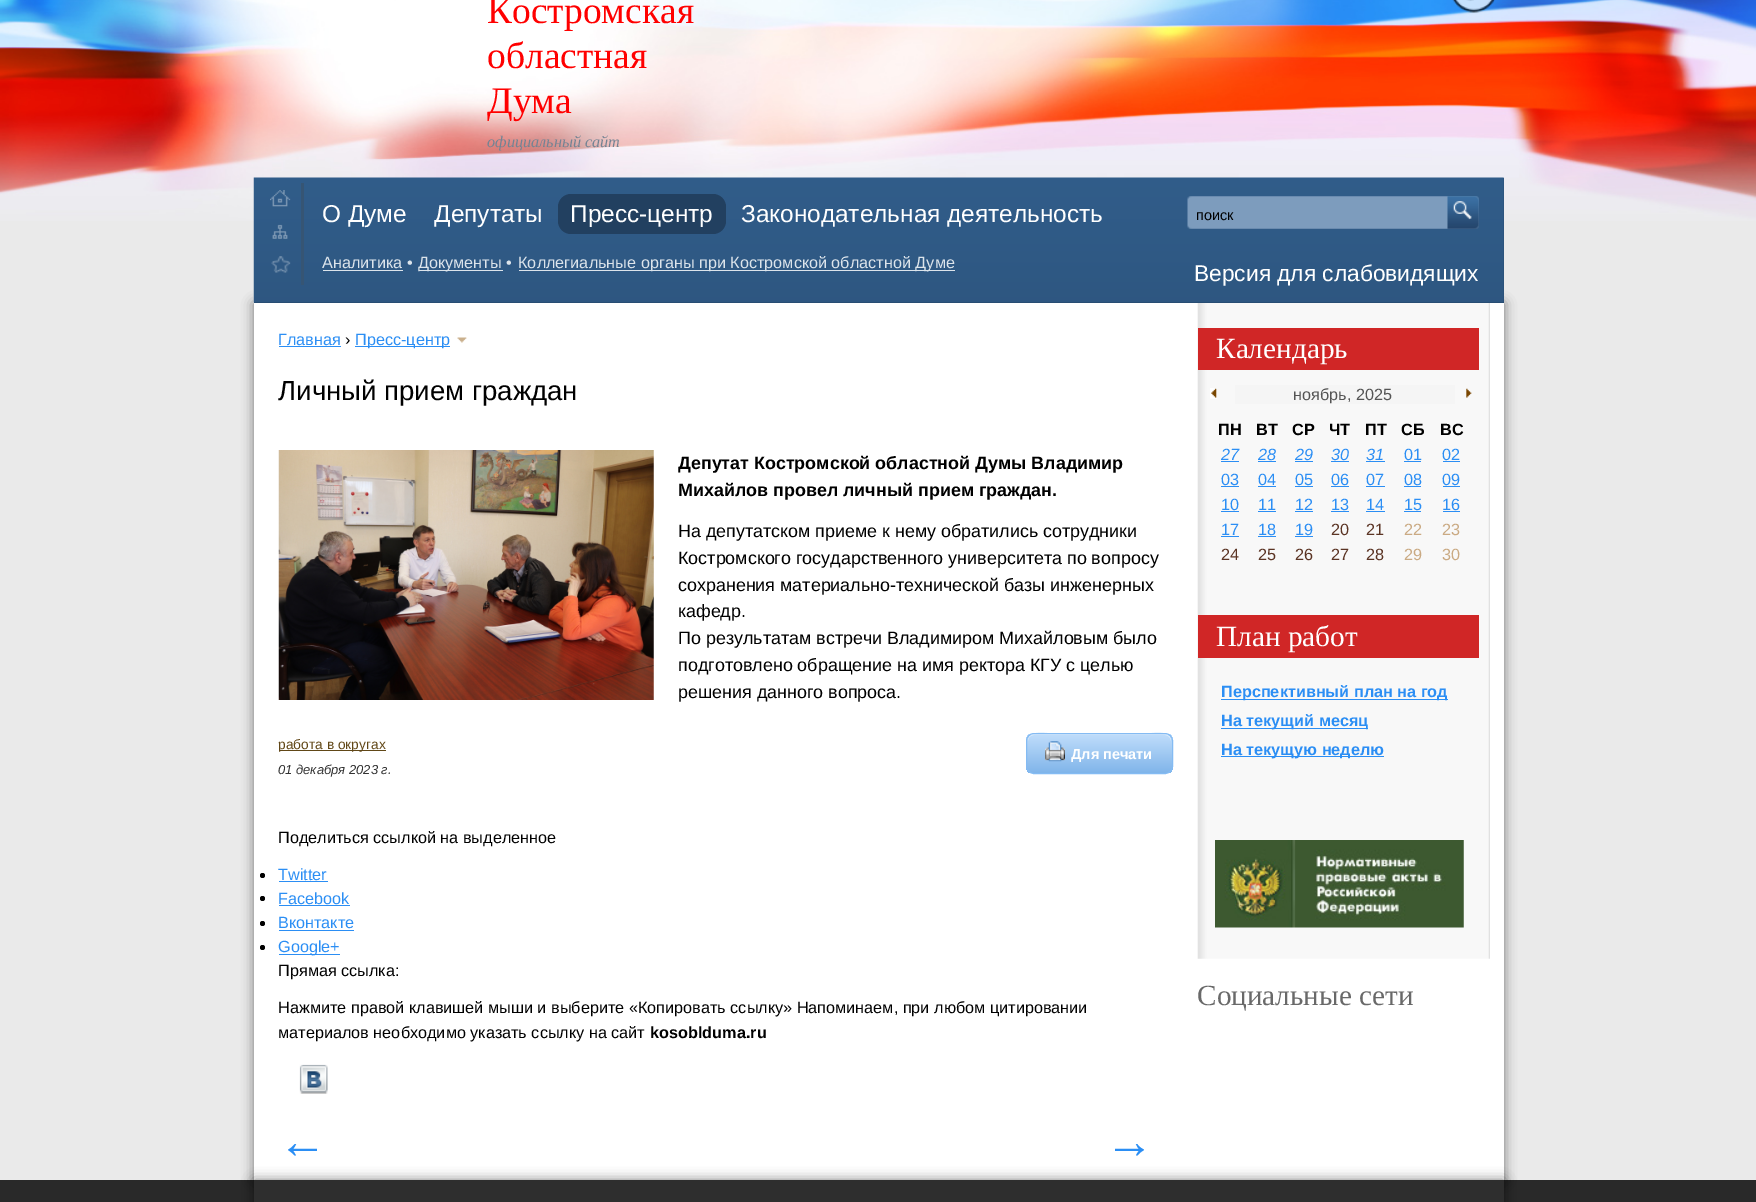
%!PS
<< /PageSize [1756 1202] /PageUsesTransparency true >> setpagedevice
/rgb { 3 { 255 div 3 1 roll } repeat setrgbcolor } def
/font { [ exch dup neg 0 0 3 -1 roll 0 0 ] selectfont } def
/text { moveto show } def
/alpha { dup .setfillconstantalpha .setstrokeconstantalpha } def
/circle { newpath 0 360 arc closepath } def
/roundrect { 5 dict begin { /r /h /w /y /x } { exch def } forall
  x r add y moveto x w add y 2 copy h add r arct x w add y h add x 1 index r arct
  x y h add x y r arct x y 2 copy exch w add exch r arct closepath end } def
/shadow { 12 dict begin { /a /b /q /h /w /y /x } { exch def } forall gsave /was 0 def
  9 -2 -9 { dup b mul 4 div /e exch def 1 sub .425 mul 2.718 exch exp 1 add a .99 .min exch div /now exch def
    1 1 now sub 1 was sub div sub alpha /was now def
    w h .min e 2 mul add 0 gt { x e sub y e sub w e 2 mul add h e 2 mul add
      q e add b .6 mul add w h .min 2 div e add .min 0 .max roundrect fill } if } for grestore end } def
/picture { 5 dict begin { /h /w /y /x /name } { exch def } forall
  gsave x y translate w h scale
  w h 8 [w 0 0 h 0 0] name (r) file false 3 colorimage grestore end } def
0 .pushpdf14devicefilter
0 1202 translate 1 -1 scale
4 setmiterlimit
234 234 234 rgb
0 0 1756 1202 rectfill
(img_01.rgb) 0 0 1756 221 picture
(img_02.rgb) 1452 0 43 13 picture
41 41 41 rgb
0 1180 1756 22 rectfill
0 0 0 rgb
254 303 1250 878 0 6 0.5 shadow
36 68 101 rgb
254 178 1250 125 rectfill
(img_03.rgb) 253 177 1251 126 picture
54 85 116 rgb
301 183 3 102 rectfill
(img_04.rgb) 270 190 21 17 picture
(img_05.rgb) 272 224 16 15 picture
(img_06.rgb) 271 256 20 17 picture
34 64 96 rgb
558 194 168 40 13 roundrect fill
220 228 235 rgb
323 270 80 1 rectfill
419 270 84 1 rectfill
519 270 436 1 rectfill
(img_07.rgb) 1187 196 292 33 picture
(img_08.rgb) 1447 196 32 33 picture
(img_09.rgb) 1453 201 19 19 picture
255 255 255 rgb
254 303 1250 877 rectfill
43 142 244 rgb
279 346 62 1 rectfill
355 346 95 1 rectfill
(img_10.rgb) 457 337 10 6 picture
(img_11.rgb) 278 450 376 250 picture
97 71 23 rgb
279 750 107 1 rectfill
gsave
1026 733 147 41 8 roundrect clip newpath
gsave 1026 734 moveto 147 0 rlineto 0 39 rlineto -147 0 rlineto closepath clip newpath
<< /ShadingType 2 /ColorSpace /DeviceRGB /Coords [1028 734 1028 773] /Extend [true true] /Function << /FunctionType 3 /Domain [0 1] /Functions [<< /FunctionType 2 /Domain [0 1] /C0 [0.741 0.859 0.98] /C1 [0.741 0.859 0.98] /N 1 >> << /FunctionType 2 /Domain [0 1] /C0 [0.741 0.859 0.98] /C1 [0.502 0.71 0.918] /N 1 >>] /Bounds [0.05] /Encode [0 1 0 1] >> >> shfill grestore
grestore
220 236 251 rgb
1034 735 moveto 131 0 rlineto 3 0 6 3 6 6 rcurveto 0 -13 -23 -7 -28 -7 rcurveto -87 0 rlineto -5 0 -28 -6 -28 7 rcurveto 0 -3 2 -6 6 -6 rcurveto closepath fill
132 187 243 rgb
1026.5 733.5 146 40 7.5 roundrect stroke
(img_12.rgb) 1045 741 20 21 picture
0 0 0 rgb
262.5 875.5 2.5 circle fill
43 142 244 rgb
279 881 49 1 rectfill
0 0 0 rgb
262.5 898.5 2.5 circle fill
43 142 244 rgb
279 905 71 1 rectfill
0 0 0 rgb
262.5 923.5 2.5 circle fill
43 142 244 rgb
279 930 75 1 rectfill
0 0 0 rgb
262.5 947.5 2.5 circle fill
43 142 244 rgb
279 954 61 1 rectfill
(img_13.rgb) 299 1064 29 30 picture
(img_14.rgb) 1197 303 293 656 picture
208 38 38 rgb
1198 328 281 42 rectfill
(img_15.rgb) 1210 388 7 11 picture
(img_16.rgb) 1466 388 6 10 picture
245 245 245 rgb
1235 385 220 19 rectfill
43 142 244 rgb
1221 461 18 1 rectfill
1258 461 18 1 rectfill
1295 461 18 1 rectfill
1331 461 18 1 rectfill
1366 461 19 1 rectfill
1404 461 17 1 rectfill
1443 461 17 1 rectfill
1221 486 18 1 rectfill
1258 486 18 1 rectfill
1295 486 18 1 rectfill
1331 486 18 1 rectfill
1366 486 19 1 rectfill
1404 486 17 1 rectfill
1443 486 17 1 rectfill
1221 511 18 1 rectfill
1258 511 18 1 rectfill
1295 511 18 1 rectfill
1331 511 18 1 rectfill
1366 511 19 1 rectfill
1404 511 17 1 rectfill
1443 511 17 1 rectfill
1221 536 18 1 rectfill
1258 536 18 1 rectfill
1295 536 18 1 rectfill
208 38 38 rgb
1198 615 281 43 rectfill
43 142 244 rgb
1221 699 227 1 rectfill
1221 728 147 1 rectfill
1221 756 163 1 rectfill
(img_17.rgb) 1215 840 249 88 picture
46 46 46 rgb
254 1180 1250 22 rectfill
gsave
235 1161 moveto 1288 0 rlineto 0 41 rlineto -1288 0 rlineto closepath 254 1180 moveto 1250 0 rlineto 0 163 rlineto -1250 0 rlineto closepath eoclip newpath
0 0 0 rgb
254 1180 1250 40 0 6 0.5 shadow
grestore
/LiberationSerif-Regular 37.5 font
255 0 0 rgb
(Костромская) 487 23 text
(областная) 487 68 text
(Дума) 487 113 text
/LiberationSerif-Italic 16.25 font
116 131 147 rgb
(официальный сайт) 487 147 text
/LiberationSans-Regular 22.75 font
255 255 255 rgb
(Версия для слабовидящих) 1194 281 text
/LiberationSans-Regular 24.4 font
(О Думе) 322 222 text
(Депутаты) 434 222 text
(Пресс-центр) 570 222 text
(Законодательная деятельность) 741 222 text
/LiberationSans-Regular 16.25 font
220 228 235 rgb
(Аналитика •) 322 268 text
(Документы •) 418 268 text
(Коллегиальные органы при Костромской областной Думе) 518 268 text
/LiberationSans-Regular 14.5 font
0 0 0 rgb
(поиск) 1196 220 text
/LiberationSans-Regular 16.25 font
43 142 244 rgb
(Главная) 278 345 text
0 0 0 rgb
(›) 345 345 text
43 142 244 rgb
(Пресс-центр) 355 345 text
/LiberationSans-Regular 27.6 font
0 0 0 rgb
(Личный прием граждан) 278 400 text
/LiberationSans-Bold 17.9 font
(Депутат Костромской областной Думы Владимир) 678 469 text
(Михайлов провел личный прием граждан.) 678 496 text
/LiberationSans-Regular 17.9 font
(На депутатском приеме к нему обратились сотрудники) 678 537 text
(Костромского государственного университета по вопросу) 678 564 text
(сохранения материально-технической базы инженерных) 678 591 text
(кафедр.) 678 617 text
(По результатам встречи Владимиром Михайловым было) 678 644 text
(подготовлено обращение на имя ректора КГУ с целью) 678 671 text
(решения данного вопроса.) 678 698 text
/LiberationSans-Regular 13.75 font
97 71 23 rgb
(работа в округах) 278 749 text
/LiberationSans-Bold 14.5 font
255 255 255 rgb
(Для печати) 1071 759 text
/LiberationSans-Italic 13 font
51 51 51 rgb
(01 декабря 2023 г.) 278 774 text
/LiberationSans-Regular 16.25 font
0 0 0 rgb
(Поделиться ссылкой на выделенное) 278 843 text
43 142 244 rgb
(Twitter) 278 880 text
(Facebook) 278 904 text
(Вконтакте) 278 928 text
(Google+) 278 952 text
0 0 0 rgb
(Прямая ссылка:) 278 976 text
(Нажмите правой клавишей мыши и выберите «Копировать ссылку» Напоминаем, при любом цитировании) 278 1013 text
(материалов необходимо указать ссылку на сайт) 278 1038 text
/LiberationSans-Bold 16.25 font
(kosoblduma.ru) 650 1038 text
/LiberationSans-Bold 49 font
43 142 244 rgb
(←) 278 1158 text
(→) 1105 1158 text
/LiberationSerif-Regular 29.25 font
255 255 255 rgb
(Календарь) 1216 358 text
/LiberationSans-Regular 16.25 font
84 84 84 rgb
(ноябрь, 2025) 1293 400 text
/LiberationSans-Bold 16.25 font
0 0 0 rgb
(ПН) 1218 435 text
(ВТ) 1256 435 text
(СР) 1292 435 text
(ЧТ) 1329 435 text
(ПТ) 1365 435 text
(СБ) 1401 435 text
(ВС) 1440 435 text
/LiberationSans-Italic 16.25 font
43 142 244 rgb
(27) 1221 460 text
(28) 1258 460 text
(29) 1295 460 text
(30) 1331 460 text
(31) 1366 460 text
/LiberationSans-Regular 16.25 font
(01) 1404 460 text
(02) 1442 460 text
(03) 1221 485 text
(04) 1258 485 text
(05) 1295 485 text
(06) 1331 485 text
(07) 1366 485 text
(08) 1404 485 text
(09) 1442 485 text
(10) 1221 510 text
(11) 1258 510 text
(12) 1295 510 text
(13) 1331 510 text
(14) 1366 510 text
(15) 1404 510 text
(16) 1442 510 text
(17) 1221 535 text
(18) 1258 535 text
(19) 1295 535 text
91 52 36 rgb
(20) 1331 535 text
(21) 1366 535 text
202 170 131 rgb
(22) 1404 535 text
(23) 1442 535 text
91 52 36 rgb
(24) 1221 560 text
(25) 1258 560 text
(26) 1295 560 text
(27) 1331 560 text
(28) 1366 560 text
202 170 131 rgb
(29) 1404 560 text
(30) 1442 560 text
/LiberationSerif-Regular 29.25 font
255 255 255 rgb
(План работ) 1216 646 text
/LiberationSans-Bold 16.25 font
43 142 244 rgb
(Перспективный план на год) 1221 697 text
(На текущий месяц) 1221 726 text
(На текущую неделю) 1221 755 text
/LiberationSerif-Regular 29.25 font
105 105 105 rgb
(Социальные сети) 1197 1005 text
.poppdf14devicefilter showpage
